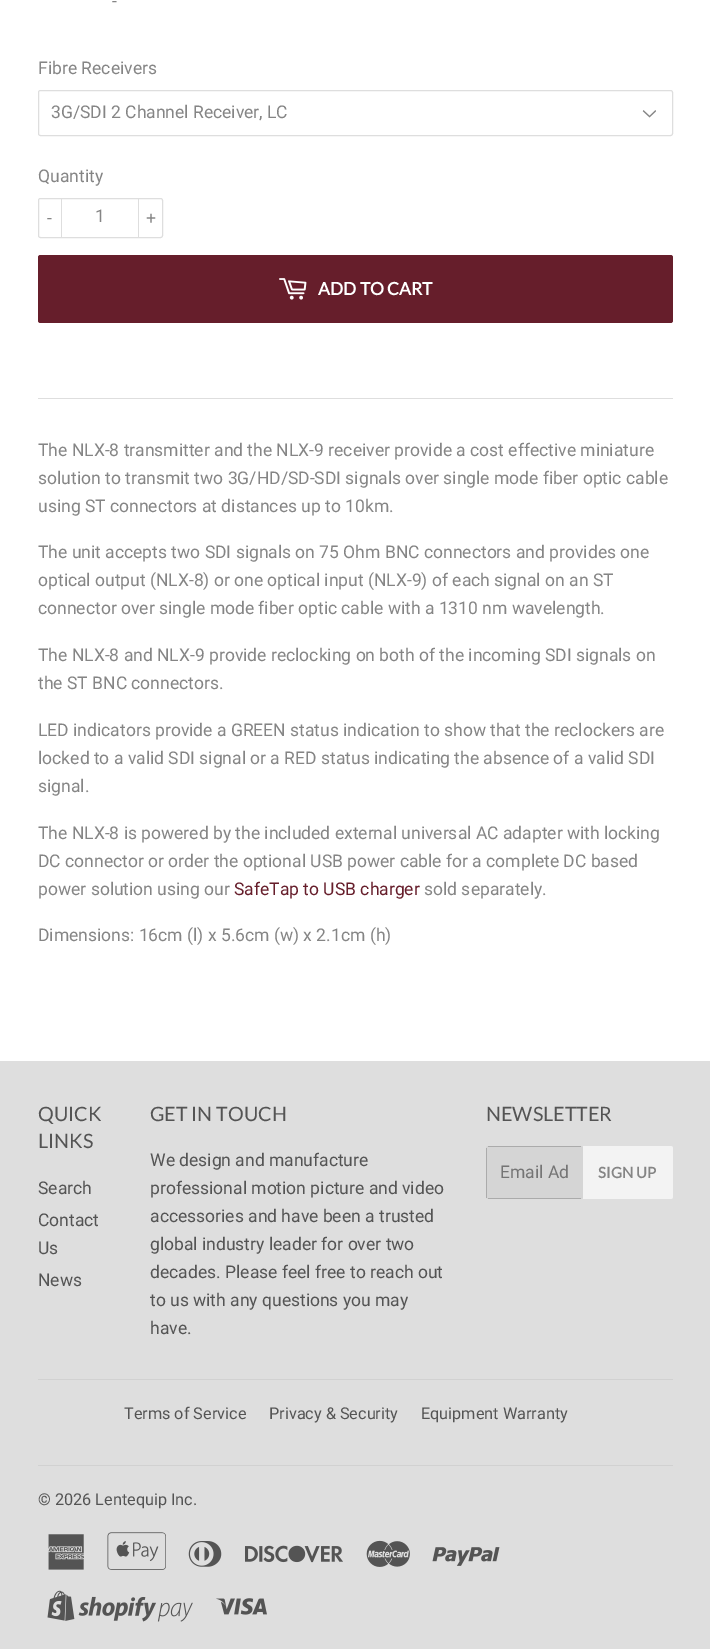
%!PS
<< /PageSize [710 1649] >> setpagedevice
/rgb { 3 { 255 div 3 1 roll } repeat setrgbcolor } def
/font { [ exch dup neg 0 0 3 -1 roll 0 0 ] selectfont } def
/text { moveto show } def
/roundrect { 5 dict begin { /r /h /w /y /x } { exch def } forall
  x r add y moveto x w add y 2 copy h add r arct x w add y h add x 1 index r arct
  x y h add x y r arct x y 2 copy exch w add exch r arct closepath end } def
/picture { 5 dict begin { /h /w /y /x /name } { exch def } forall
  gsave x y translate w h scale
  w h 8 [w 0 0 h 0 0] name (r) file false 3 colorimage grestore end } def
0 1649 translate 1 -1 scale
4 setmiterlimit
255 255 255 rgb
0 0 710 1649 rectfill
(img_01.rgb) 642 110 14 8 picture
222 222 222 rgb
38.5 90.5 634 45 2 roundrect stroke
38.5 198.5 124 39 2 roundrect stroke
61 198 1 40 rectfill
138 198 1 40 rectfill
102 30 43 rgb
38 255 635 68 2.5 roundrect fill
(img_02.rgb) 279 278 28 22 picture
222 222 222 rgb
38 398 635 1 rectfill
0 1061 710 588 rectfill
213 213 213 rgb
486 1146 97 53 2.5 roundrect fill
171 171 171 rgb
488 1146 93 1 rectfill
488 1198 93 1 rectfill
486 1148 1 50 rectfill
243 243 243 rgb
583 1146 moveto 87.5 0 rlineto 1.5 0 2.5 1 2.5 2.5 rcurveto 0 48 rlineto 0 1.5 -1 2.5 -2.5 2.5 rcurveto -87.5 0 rlineto closepath fill
209 209 209 rgb
38 1379 635 1 rectfill
38 1465 635 1 rectfill
(img_03.rgb) 48 1534 36 36 picture
(img_04.rgb) 107 1532 59 38 picture
(img_05.rgb) 188 1541 34 26 picture
(img_06.rgb) 245 1545 98 18 picture
(img_07.rgb) 366 1540 44 27 picture
(img_08.rgb) 432 1547 68 19 picture
(img_09.rgb) 47 1590 146 32 picture
(img_10.rgb) 216 1598 51 17 picture
/Roboto-Regular 17.5 font
133 133 133 rgb
(-) 112 7 text
(Fibre Receivers) 38 74 text
(3G/SDI 2 Channel Receiver, LC) 51 118 text
(Quantity) 38 182 text
(-) 47 224 text
(1) 95 222 text
(+) 146 224 text
/Lato-Bold 17.5 font
255 255 255 rgb
(ADD TO CART) 318 295 text
/Roboto-Regular 17.5 font
133 133 133 rgb
(The NLX-8 transmitter and the NLX-9 receiver provide a cost effective miniature) 38 456 text
(solution to transmit two 3G/HD/SD-SDI signals over single mode fiber optic cable) 38 484 text
(using ST connectors at distances up to 10km.) 38 512 text
(The unit accepts two SDI signals on 75 Ohm BNC connectors and provides one) 38 558 text
(optical output \(NLX-8\) or one optical input \(NLX-9\) of each signal on an ST) 38 586 text
(connector over single mode fiber optic cable with a 1310 nm wavelength.) 38 614 text
(The NLX-8 and NLX-9 provide reclocking on both of the incoming SDI signals on) 38 661 text
(the ST BNC connectors.) 38 689 text
(LED indicators provide a GREEN status indication to show that the reclockers are) 38 736 text
(locked to a valid SDI signal or a RED status indicating the absence of a valid SDI) 38 764 text
(signal.) 38 792 text
(The NLX-8 is powered by the included external universal AC adapter with locking) 38 839 text
(DC connector or order the optional USB power cable for a complete DC based) 38 867 text
(power solution using our) 38 895 text
102 30 43 rgb
(SafeTap to USB charger) 234 895 text
133 133 133 rgb
(sold separately.) 424 895 text
(Dimensions: 16cm \(l\) x 5.6cm \(w\) x 2.1cm \(h\)) 38 941 text
/Lato-Regular 19.75 font
84 84 84 rgb
(QUICK) 38 1121 text
(LINKS) 38 1148 text
/Roboto-Regular 17.5 font
(Search) 38 1194 text
(Contact) 38 1226 text
(Us) 38 1254 text
(News) 38 1286 text
/Lato-Regular 19.75 font
(GET IN TOUCH) 150 1121 text
/Roboto-Regular 17.5 font
(We design and manufacture) 150 1166 text
(professional motion picture and video) 150 1194 text
(accessories and have been a trusted) 150 1222 text
(global industry leader for over two) 150 1250 text
(decades. Please feel free to reach out) 150 1278 text
(to us with any questions you may) 150 1306 text
(have.) 150 1334 text
/Lato-Regular 19.75 font
(NEWSLETTER) 486 1121 text
/Roboto-Regular 17.5 font
117 117 117 rgb
(Email Ad) 500 1178 text
/Lato-Bold 15 font
133 133 133 rgb
(SIGN UP) 598 1178 text
/Roboto-Regular 16.25 font
84 84 84 rgb
(Terms of Service) 124 1419 text
(Privacy & Security) 269 1419 text
(Equipment Warranty) 421 1419 text
(© 2026 Lentequip Inc.) 38 1505 text
showpage
